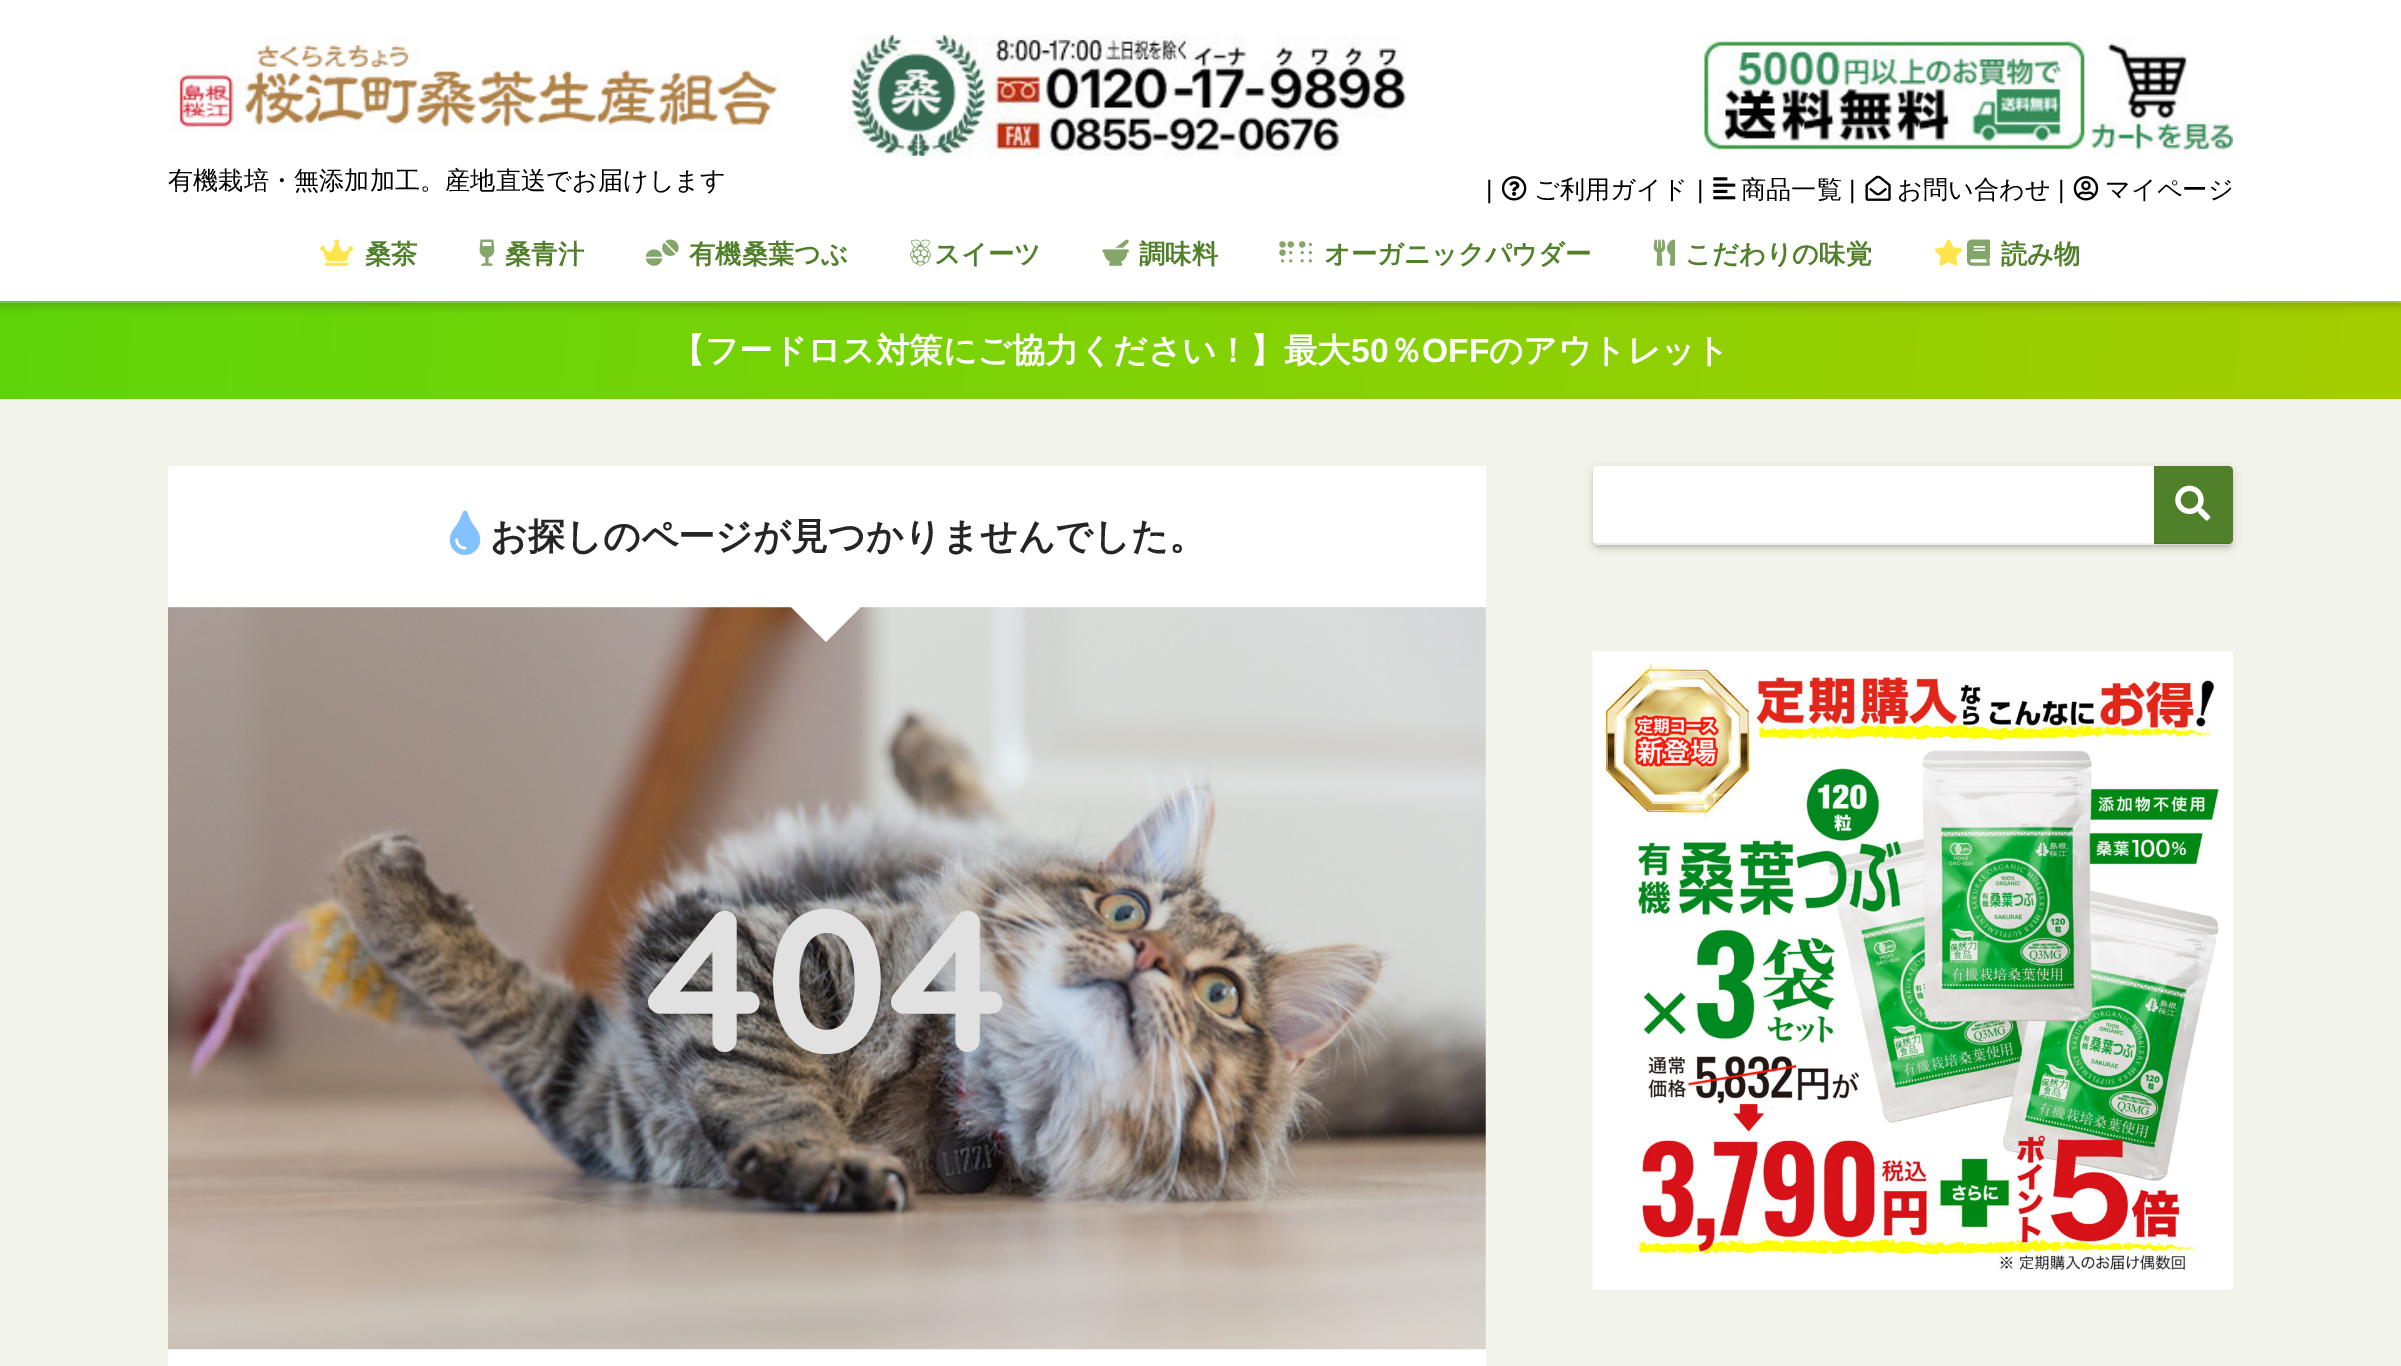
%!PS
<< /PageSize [2401 1366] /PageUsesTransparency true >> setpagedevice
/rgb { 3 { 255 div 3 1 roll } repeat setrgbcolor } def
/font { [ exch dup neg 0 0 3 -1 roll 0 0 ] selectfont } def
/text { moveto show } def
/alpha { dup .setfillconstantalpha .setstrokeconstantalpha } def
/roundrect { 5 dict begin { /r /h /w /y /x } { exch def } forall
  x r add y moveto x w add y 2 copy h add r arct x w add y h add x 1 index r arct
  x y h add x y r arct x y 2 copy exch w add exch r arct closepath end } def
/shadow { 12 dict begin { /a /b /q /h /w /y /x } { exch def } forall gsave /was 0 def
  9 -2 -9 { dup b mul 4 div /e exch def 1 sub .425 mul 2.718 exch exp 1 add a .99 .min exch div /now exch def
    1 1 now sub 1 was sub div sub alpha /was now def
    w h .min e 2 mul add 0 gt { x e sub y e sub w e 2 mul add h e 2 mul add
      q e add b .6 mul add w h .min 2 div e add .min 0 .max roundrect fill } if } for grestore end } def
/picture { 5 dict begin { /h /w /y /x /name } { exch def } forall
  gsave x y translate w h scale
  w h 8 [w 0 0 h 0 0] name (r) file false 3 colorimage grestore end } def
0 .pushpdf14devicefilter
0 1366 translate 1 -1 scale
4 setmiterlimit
243 244 233 rgb
0 0 2401 1366 rectfill
gsave 0 301 moveto 2401 0 rlineto 0 2 rlineto -2401 0 rlineto closepath clip newpath
<< /ShadingType 2 /ColorSpace /DeviceRGB /Coords [4.9 150 2396 359] /Extend [true true] /Function << /FunctionType 2 /Domain [0 1] /C0 [0.561 0.886 0.329] /C1 [0.753 0.867 0.302] /N 1 >> >> shfill grestore
gsave 0 303 moveto 2401 0 rlineto 0 96 rlineto -2401 0 rlineto closepath clip newpath
<< /ShadingType 2 /ColorSpace /DeviceRGB /Coords [4.9 246 2396 455] /Extend [true true] /Function << /FunctionType 2 /Domain [0 1] /C0 [0.373 0.839 0.039] /C1 [0.647 0.808 0] /N 1 >> >> shfill grestore
0 0 0 rgb
0 5 2401 301 0 5 0.18 shadow
255 255 255 rgb
0 0 2401 301 rectfill
(img_01.rgb) 848 35 559 121 picture
(img_02.rgb) 168 35 613 98 picture
(img_03.rgb) 1704 35 381 123 picture
(img_04.rgb) 2091 35 142 122 picture
(img_05.rgb) 1501 176 26 25 picture
(img_06.rgb) 1713 177 23 23 picture
(img_07.rgb) 1865 175 26 26 picture
(img_08.rgb) 2073 176 26 25 picture
(img_09.rgb) 320 239 33 27 picture
(img_10.rgb) 479 239 16 27 picture
(img_11.rgb) 645 239 34 27 picture
(img_12.rgb) 910 239 21 27 picture
(img_13.rgb) 1102 239 27 27 picture
(img_14.rgb) 1279 241 33 22 picture
(img_15.rgb) 1653 239 23 27 picture
(img_16.rgb) 1934 239 29 27 picture
(img_17.rgb) 1967 239 23 27 picture
168 466 1318 141 rectfill
(img_18.rgb) 449 510 32 45 picture
168 1349 1318 17 rectfill
(img_19.rgb) 168 607 1318 743 picture
791 607 moveto 70 0 rlineto -35 35 rlineto closepath fill
0 0 0 rgb
1596 474 634 72 2 2.5 0.15 shadow
1593 469 640 79 5 4.5 0.15 shadow
255 255 255 rgb
1593 466 640 78 5 roundrect fill
239 239 239 rgb
1596 543 635 2 rectfill
80 128 41 rgb
2154 466 moveto 74 0 rlineto 3 0 5 2 5 5 rcurveto 0 68 rlineto 0 3 -2 5 -5 5 rcurveto -74 0 rlineto closepath fill
0.1 alpha
0 0 0 rgb
2154 543 77 2 rectfill
1 alpha
(img_20.rgb) 2175 485 36 36 picture
(img_21.rgb) 1592 651 641 639 picture
/WenQuanYiZenHei-Medium 25.2 font
(有機栽培・無添加加工。産地直送でお届けします) 168 189 text
/LiberationSans-Regular 25.2 font
(|) 1486 198 text
/WenQuanYiZenHei-Medium 25.2 font
(ご利用ガイド) 1534 198 text
/LiberationSans-Regular 25.2 font
(|) 1697 198 text
/WenQuanYiZenHei-Medium 25.2 font
(商品一覧) 1741 198 text
/LiberationSans-Regular 25.2 font
(|) 1849 198 text
/WenQuanYiZenHei-Medium 25.2 font
(お問い合わせ) 1897 198 text
/LiberationSans-Regular 25.2 font
(|) 2058 198 text
/WenQuanYiZenHei-Medium 25.2 font
(マイページ) 2105 198 text
/WenQuanYiZenHei-Bold 26.25 font
80 128 41 rgb
(桑茶) 365 263 text
(桑青汁) 505 263 text
(有機桑葉つぶ) 689 263 text
(スイーツ) 934 263 text
(調味料) 1139 263 text
(オーガニックパウダー) 1324 263 text
(こだわりの味覚) 1685 263 text
(読み物) 2001 263 text
/WenQuanYiZenHei-Bold 33.6 font
255 255 255 rgb
(【フードロス対策にご協力ください！】最大) 671 362 text
/LiberationSans-Bold 33.6 font
(50) 1351 362 text
/WenQuanYiZenHei-Bold 33.6 font
(％) 1389 362 text
/LiberationSans-Bold 33.6 font
(OFF) 1422 362 text
/WenQuanYiZenHei-Bold 33.6 font
(のアウトレット) 1489 362 text
/WenQuanYiZenHei-Bold 37 font
37 37 37 rgb
(お探しのページが見つかりませんでした。) 490 549 text
/Quicksand-Bold 202 font
226 225 225 rgb
(404) 646 1052 text
.poppdf14devicefilter showpage
